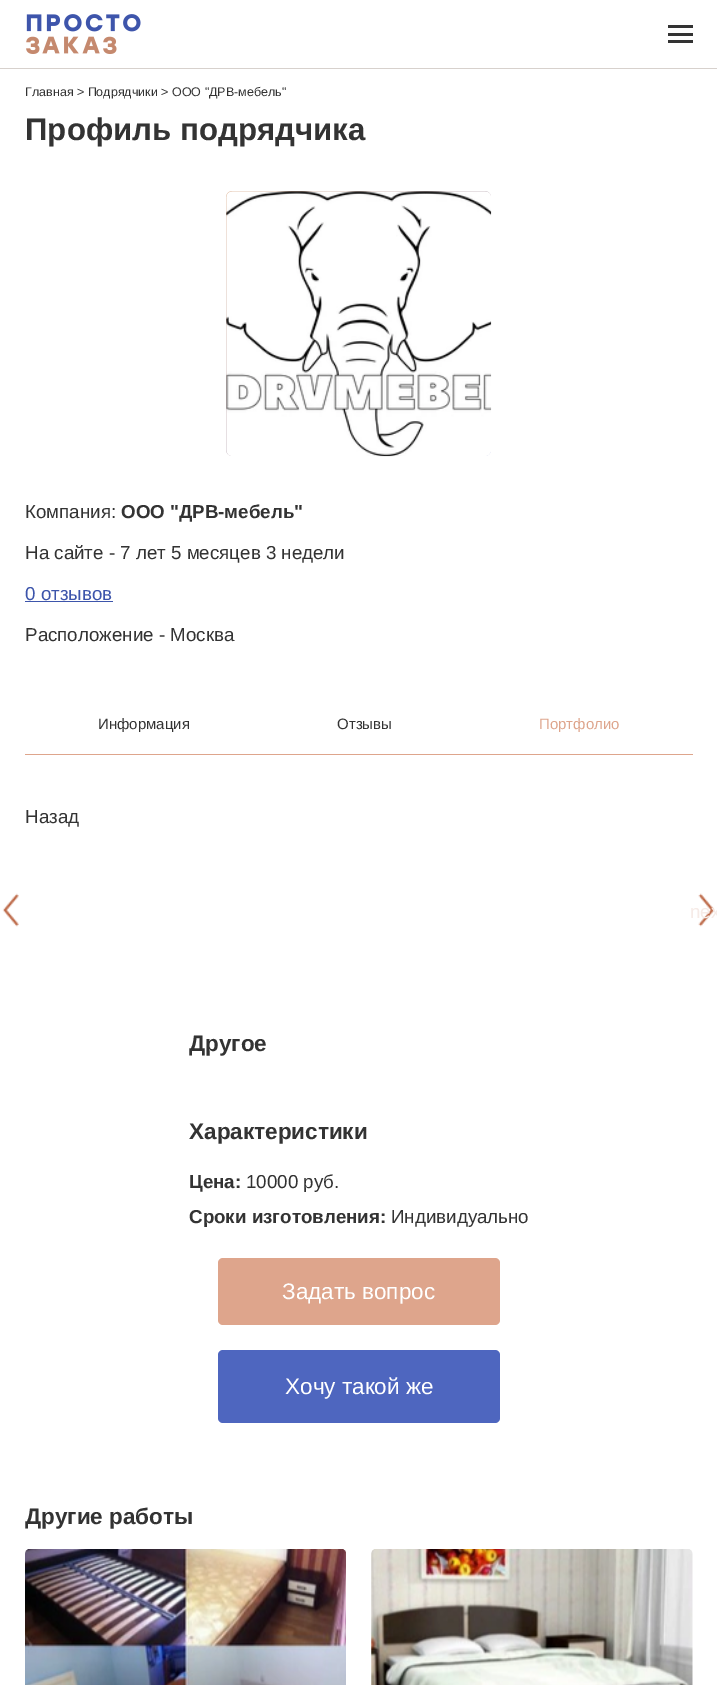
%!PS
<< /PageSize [717 1685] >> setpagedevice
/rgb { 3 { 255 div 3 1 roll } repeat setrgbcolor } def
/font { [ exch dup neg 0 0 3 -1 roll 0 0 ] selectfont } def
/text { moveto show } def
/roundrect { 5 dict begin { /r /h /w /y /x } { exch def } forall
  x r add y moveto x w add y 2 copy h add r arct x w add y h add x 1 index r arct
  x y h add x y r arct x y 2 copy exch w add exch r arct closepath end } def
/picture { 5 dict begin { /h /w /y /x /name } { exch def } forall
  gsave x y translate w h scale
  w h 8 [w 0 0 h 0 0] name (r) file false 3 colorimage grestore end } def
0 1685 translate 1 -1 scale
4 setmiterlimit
255 255 255 rgb
0 0 717 1685 rectfill
215 209 205 rgb
0 68 717 1 rectfill
(img_01.rgb) 26 14 115 40 picture
51 51 51 rgb
668 25 25 3 rectfill
668 33 25 3 rectfill
668 40 25 3 rectfill
gsave 226 191 265 265 6 roundrect clip newpath
<< /ShadingType 2 /ColorSpace /DeviceRGB /Coords [226 191 491 456] /Extend [true true] /Function << /FunctionType 2 /Domain [0 1] /C0 [0.878 0.737 0.635] /C1 [0.651 0.686 0.859] /N 1 >> >> shfill grestore
(img_02.rgb) 226 191 266 266 picture
61 85 171 rgb
25 601 88 1 rectfill
222 165 140 rgb
25 754 668 1 rectfill
(img_03.rgb) 2 893 17 34 picture
(img_04.rgb) 698 893 17 34 picture
218 1258 282 67 5 roundrect fill
78 102 191 rgb
218 1350 282 73 5 roundrect fill
(img_05.rgb) 25 1549 321 136 picture
(img_06.rgb) 371 1549 322 136 picture
/LiberationSans-Regular 12.5 font
51 51 51 rgb
(Главная > Подрядчики > ООО "ДРВ-мебель") 25 96 text
/LiberationSans-Bold 31.25 font
(Профиль подрядчика) 25 140 text
/LiberationSans-Regular 18.75 font
(Компания:) 25 518 text
/LiberationSans-Bold 18.75 font
(ООО "ДРВ-мебель") 121 518 text
/LiberationSans-Regular 18.75 font
(На сайте - 7 лет 5 месяцев 3 недели) 25 559 text
61 85 171 rgb
(0 отзывов) 25 600 text
51 51 51 rgb
(Расположение - Москва) 25 641 text
/LiberationSans-Regular 15 font
(Информация) 98 729 text
(Отзывы) 337 729 text
222 165 140 rgb
(Портфолио) 539 729 text
/LiberationSans-Regular 18.75 font
51 51 51 rgb
(Назад) 25 823 text
246 235 231 rgb
(nex) 690 918 text
/LiberationSans-Bold 22.5 font
51 51 51 rgb
(Другое) 189 1051 text
(Характеристики) 189 1139 text
/LiberationSans-Bold 18.75 font
(Цена:) 189 1188 text
/LiberationSans-Regular 18.75 font
(10000 руб.) 246 1188 text
/LiberationSans-Bold 18.75 font
(Сроки изготовления:) 189 1223 text
/LiberationSans-Regular 18.75 font
(Индивидуально) 391 1223 text
/LiberationSans-Regular 22.5 font
255 255 255 rgb
(Задать вопрос) 282 1299 text
(Хочу такой же) 285 1394 text
/LiberationSans-Bold 22.5 font
51 51 51 rgb
(Другие работы) 25 1524 text
showpage
